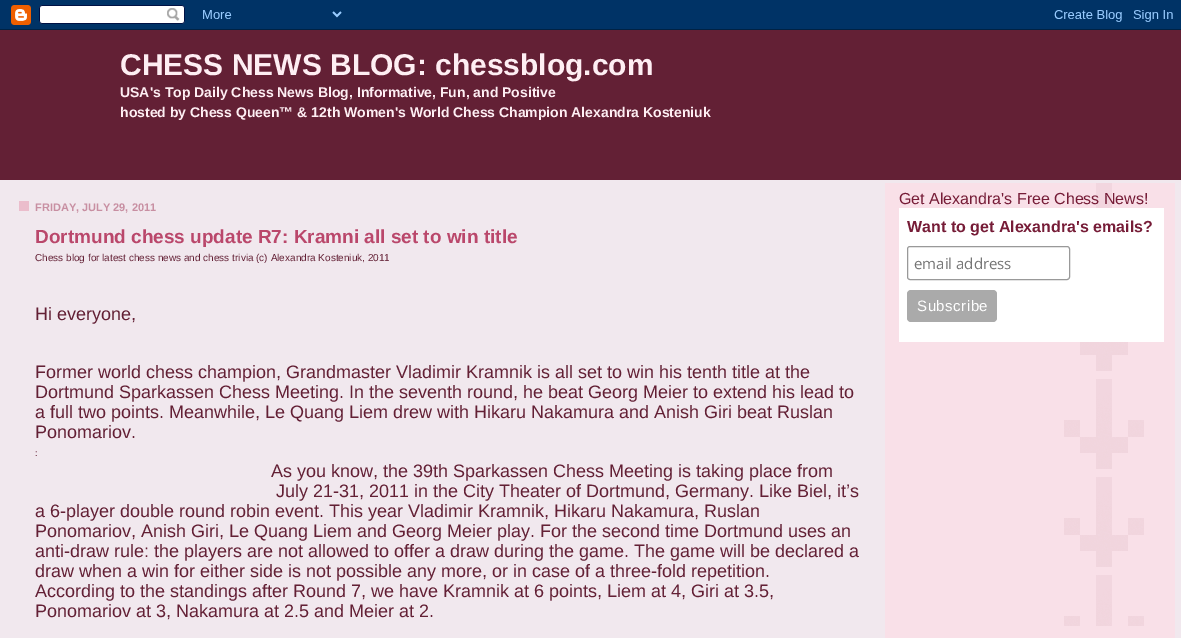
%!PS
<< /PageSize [1181 638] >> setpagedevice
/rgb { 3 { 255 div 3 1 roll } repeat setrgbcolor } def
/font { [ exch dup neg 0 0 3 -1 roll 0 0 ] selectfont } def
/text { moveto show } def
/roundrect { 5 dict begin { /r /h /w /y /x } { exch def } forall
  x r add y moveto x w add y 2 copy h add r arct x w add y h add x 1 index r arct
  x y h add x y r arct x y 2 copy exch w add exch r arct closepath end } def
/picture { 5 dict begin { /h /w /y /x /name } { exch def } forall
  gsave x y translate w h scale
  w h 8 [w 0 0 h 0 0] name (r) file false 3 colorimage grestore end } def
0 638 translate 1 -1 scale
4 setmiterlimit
241 232 238 rgb
0 0 1181 638 rectfill
(img_01.rgb) 0 0 1181 30 picture
99 32 53 rgb
0 30 1181 150 rectfill
235 189 204 rgb
19 201 10 10 rectfill
249 224 232 rgb
885 183 290 455 rectfill
(img_02.rgb) 1064 183 80 443 picture
255 255 255 rgb
899 208 265 134 rectfill
153 153 153 rgb
907.5 246.5 162 33 2.5 roundrect stroke
170 170 170 rgb
907 290 90 32 4 roundrect fill
/LiberationSans-Bold 30 font
254 238 243 rgb
(CHESS NEWS BLOG: chessblog.com) 120 75 text
/LiberationSans-Bold 14 font
(USA's Top Daily Chess News Blog, Informative, Fun, and Positive) 120 97 text
(hosted by Chess Queen™ & 12th Women's World Chess Champion Alexandra Kosteniuk) 120 117 text
/LiberationSans-Bold 11 font
200 143 162 rgb
(FRIDAY, JULY 29, 2011) 35 211 text
/LiberationSans-Bold 19 font
186 71 107 rgb
(Dortmund chess update R7: Kramni all set to win title) 35 243 text
/LiberationSans-Regular 10 font
99 32 53 rgb
(Chess blog for latest chess news and chess trivia \(c\) Alexandra Kosteniuk, 2011) 35 261 text
/LiberationSans-Regular 18 font
(Hi everyone,) 35 320 text
(Former world chess champion, Grandmaster Vladimir Kramnik is all set to win his tenth title at the) 35 378 text
(Dortmund Sparkassen Chess Meeting. In the seventh round, he beat Georg Meier to extend his lead to) 35 398 text
(a full two points. Meanwhile, Le Quang Liem drew with Hikaru Nakamura and Anish Giri beat Ruslan) 35 418 text
(Ponomariov.) 35 438 text
/LiberationSans-Regular 9 font
(:) 35 456 text
/LiberationSans-Regular 18 font
(As you know, the 39th Sparkassen Chess Meeting is taking place from) 271 477 text
(July 21-31, 2011 in the City Theater of Dortmund, Germany. Like Biel, it’s) 276 497 text
(a 6-player double round robin event. This year Vladimir Kramnik, Hikaru Nakamura, Ruslan) 35 517 text
(Ponomariov, Anish Giri, Le Quang Liem and Georg Meier play. For the second time Dortmund uses an) 35 537 text
(anti-draw rule: the players are not allowed to offer a draw during the game. The game will be declared a) 35 557 text
(draw when a win for either side is not possible any more, or in case of a three-fold repetition.) 35 577 text
(According to the standings after Round 7, we have Kramnik at 6 points, Liem at 4, Giri at 3.5,) 35 597 text
(Ponomariov at 3, Nakamura at 2.5 and Meier at 2.) 35 617 text
/LiberationSans-Regular 16 font
118 28 55 rgb
(Get Alexandra's Free Chess News!) 899 204 text
/LiberationSans-Bold 16 font
(Want to get Alexandra's emails?) 907 232 text
/OpenSans-Regular 15 font
117 117 117 rgb
(email address) 914 269 text
/LiberationSans-Regular 15 font
255 255 255 rgb
917 311 moveto 0.5 0 (Subscribe) ashow
showpage
